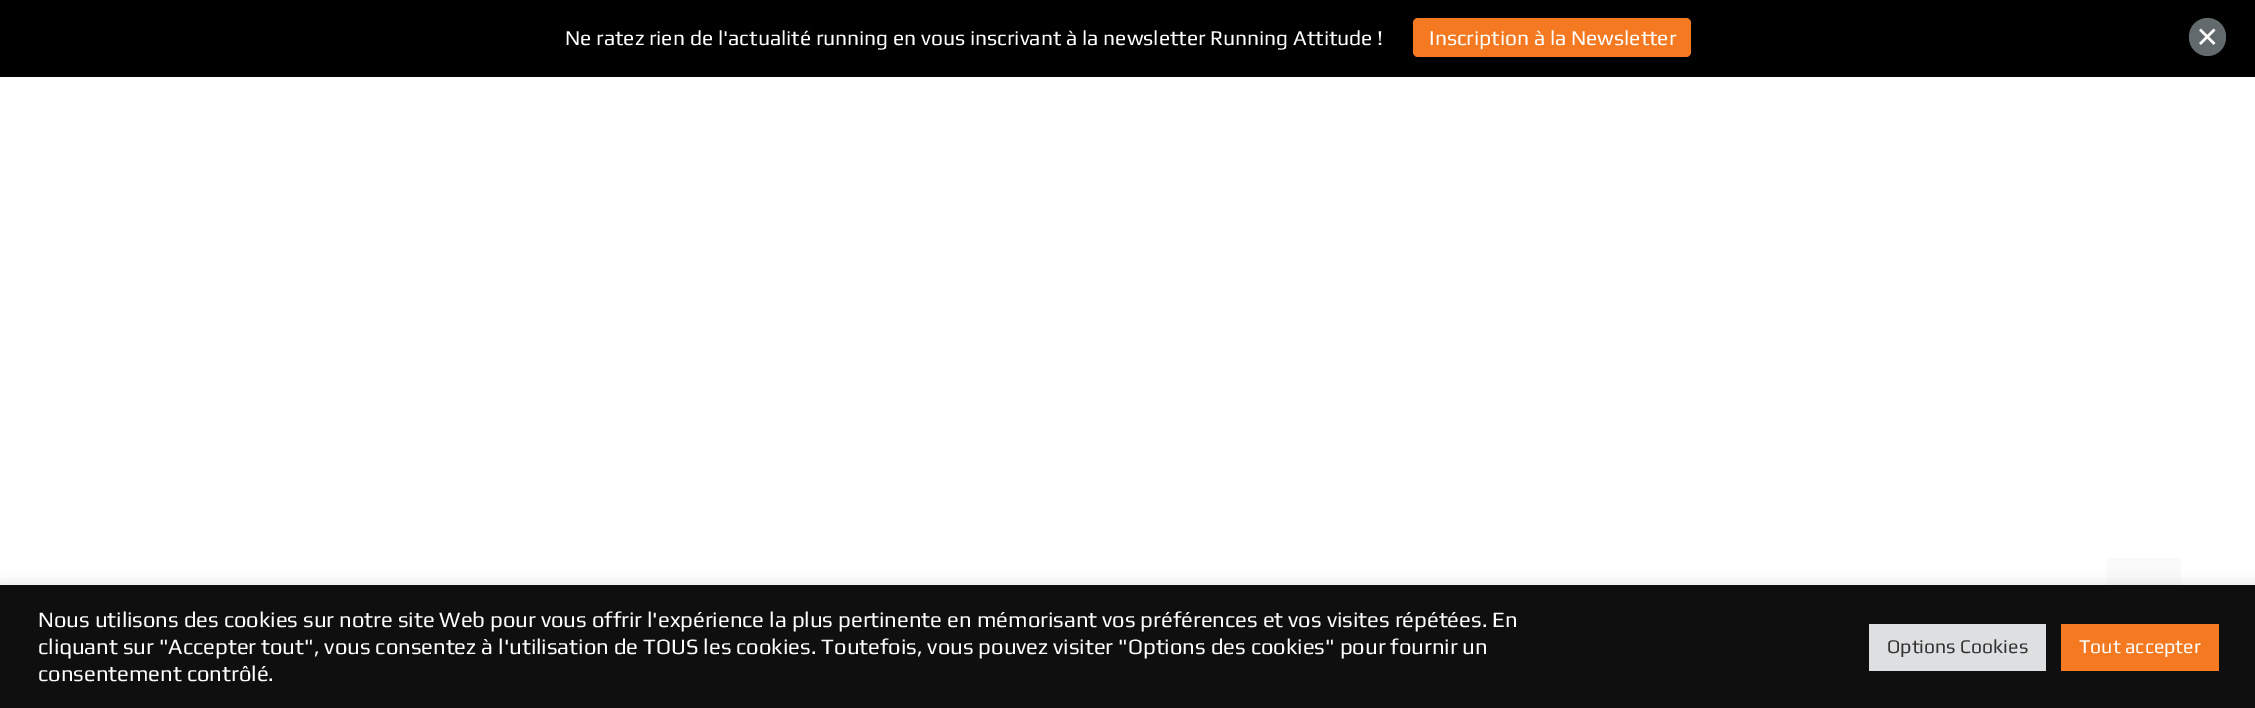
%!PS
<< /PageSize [2255 708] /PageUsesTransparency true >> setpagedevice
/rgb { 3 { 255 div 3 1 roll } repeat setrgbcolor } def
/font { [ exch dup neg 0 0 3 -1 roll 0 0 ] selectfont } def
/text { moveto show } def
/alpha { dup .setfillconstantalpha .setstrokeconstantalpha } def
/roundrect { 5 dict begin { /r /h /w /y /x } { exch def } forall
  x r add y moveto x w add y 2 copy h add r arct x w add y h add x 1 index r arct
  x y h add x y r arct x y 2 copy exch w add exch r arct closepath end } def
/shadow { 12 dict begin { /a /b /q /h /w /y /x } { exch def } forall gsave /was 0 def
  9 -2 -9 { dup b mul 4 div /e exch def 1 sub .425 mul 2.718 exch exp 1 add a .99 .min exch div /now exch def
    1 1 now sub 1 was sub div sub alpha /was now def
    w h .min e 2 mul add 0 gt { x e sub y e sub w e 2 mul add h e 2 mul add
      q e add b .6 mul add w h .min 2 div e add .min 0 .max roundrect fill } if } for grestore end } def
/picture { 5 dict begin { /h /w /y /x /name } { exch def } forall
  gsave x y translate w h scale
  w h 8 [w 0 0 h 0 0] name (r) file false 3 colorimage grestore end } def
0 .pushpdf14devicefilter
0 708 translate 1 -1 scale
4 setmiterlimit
255 255 255 rgb
0 0 2255 708 rectfill
0 0 0 rgb
0 0 2255 77 rectfill
244 121 33 rgb
1413 18 278 39 5 roundrect fill
99 106 109 rgb
2189 18 37 38 18.5 roundrect fill
(img_01.rgb) 2199 28 17 17 picture
250 250 250 rgb
2106 558 75 75 3 roundrect fill
172 171 171 rgb
0 584 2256 123 0 7.5 0.3 shadow
15 15 15 rgb
0 585 2255 123 rectfill
222 223 224 rgb
1869 624 177 47 rectfill
244 121 33 rgb
2061 624 158 47 rectfill
/Play-Regular 21 font
255 255 255 rgb
(Ne ratez rien de l'actualité running en vous inscrivant à la newsletter Running Attitude !) 565 45 text
(Inscription à la Newsletter) 1429 45 text
/Play-Regular 22 font
(Nous utilisons des cookies sur notre site Web pour vous offrir l'expérience la plus pertinente en mémorisant vos préférences et vos visites répétées. En) 38 627 text
(cliquant sur "Accepter tout", vous consentez à l'utilisation de TOUS les cookies. Toutefois, vous pouvez visiter "Options des cookies" pour fournir un) 38 654 text
(consentement contrôlé.) 38 681 text
/Play-Regular 19.5 font
51 51 51 rgb
(Options Cookies) 1887 653 text
255 255 255 rgb
(Tout accepter) 2079 653 text
.poppdf14devicefilter showpage
